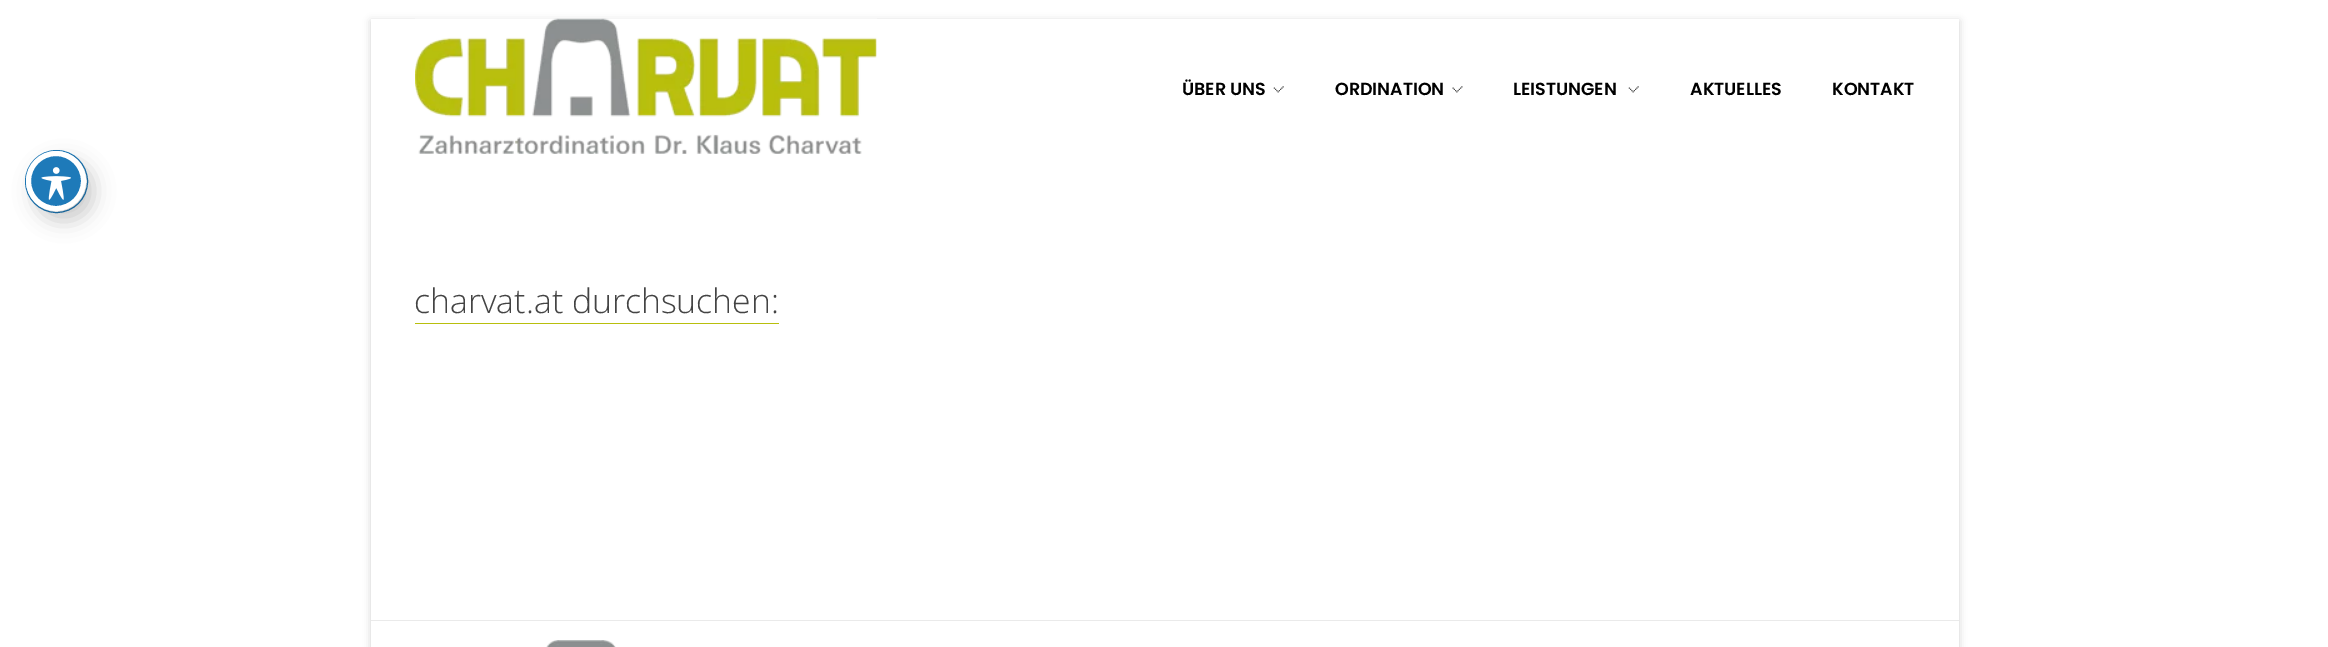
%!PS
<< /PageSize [2328 647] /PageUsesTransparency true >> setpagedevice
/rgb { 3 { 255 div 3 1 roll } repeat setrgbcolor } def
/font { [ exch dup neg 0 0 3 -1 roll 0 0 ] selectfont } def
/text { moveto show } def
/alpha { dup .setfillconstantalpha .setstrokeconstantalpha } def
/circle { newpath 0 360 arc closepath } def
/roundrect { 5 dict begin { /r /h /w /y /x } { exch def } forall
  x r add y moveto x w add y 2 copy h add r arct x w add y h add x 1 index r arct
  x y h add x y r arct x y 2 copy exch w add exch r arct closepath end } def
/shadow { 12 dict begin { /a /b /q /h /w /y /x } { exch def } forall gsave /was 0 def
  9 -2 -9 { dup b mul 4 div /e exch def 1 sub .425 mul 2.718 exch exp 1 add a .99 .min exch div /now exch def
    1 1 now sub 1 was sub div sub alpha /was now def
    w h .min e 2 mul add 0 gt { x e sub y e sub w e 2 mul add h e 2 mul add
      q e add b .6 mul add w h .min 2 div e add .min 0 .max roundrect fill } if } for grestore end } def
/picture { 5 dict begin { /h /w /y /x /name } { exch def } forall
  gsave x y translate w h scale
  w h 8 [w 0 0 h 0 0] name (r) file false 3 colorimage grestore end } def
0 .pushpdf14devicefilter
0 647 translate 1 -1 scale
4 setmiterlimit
255 255 255 rgb
0 0 2328 647 rectfill
30 122 185 rgb
56.5 181.5 31 circle stroke
0 0 0 rgb
34 161 60 60 30 10 0.2 shadow
30 122 185 rgb
56 181 27.5 circle gsave fill grestore
255 255 255 rgb
5 setlinewidth
stroke
(img_01.rgb) 41 167 30 33 picture
100 100 100 rgb
371 21 1588 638 0 4 0.3 shadow
255 255 255 rgb
371 19 1588 628 rectfill
(img_02.rgb) 415 18 462 136 picture
(img_03.rgb) 1273 86 11 7 picture
(img_04.rgb) 1452 86 11 7 picture
(img_03.rgb) 1628 86 11 7 picture
184 191 13 rgb
415 323 364 1 rectfill
234 234 234 rgb
371 620 1588 1 rectfill
(img_05.rgb) 546 640 70 7 picture
/Poppins-SemiBold 17.5 font
0 0 0 rgb
(ÜBER UNS) 1182 95 text
(ORDINATION) 1335 95 text
(LEISTUNGEN) 1513 95 text
(AKTUELLES) 1690 95 text
(KONTAKT) 1832 95 text
/OpenSans-Light 33.75 font
68 68 68 rgb
(charvat.at durchsuchen:) 414 313 text
.poppdf14devicefilter showpage
